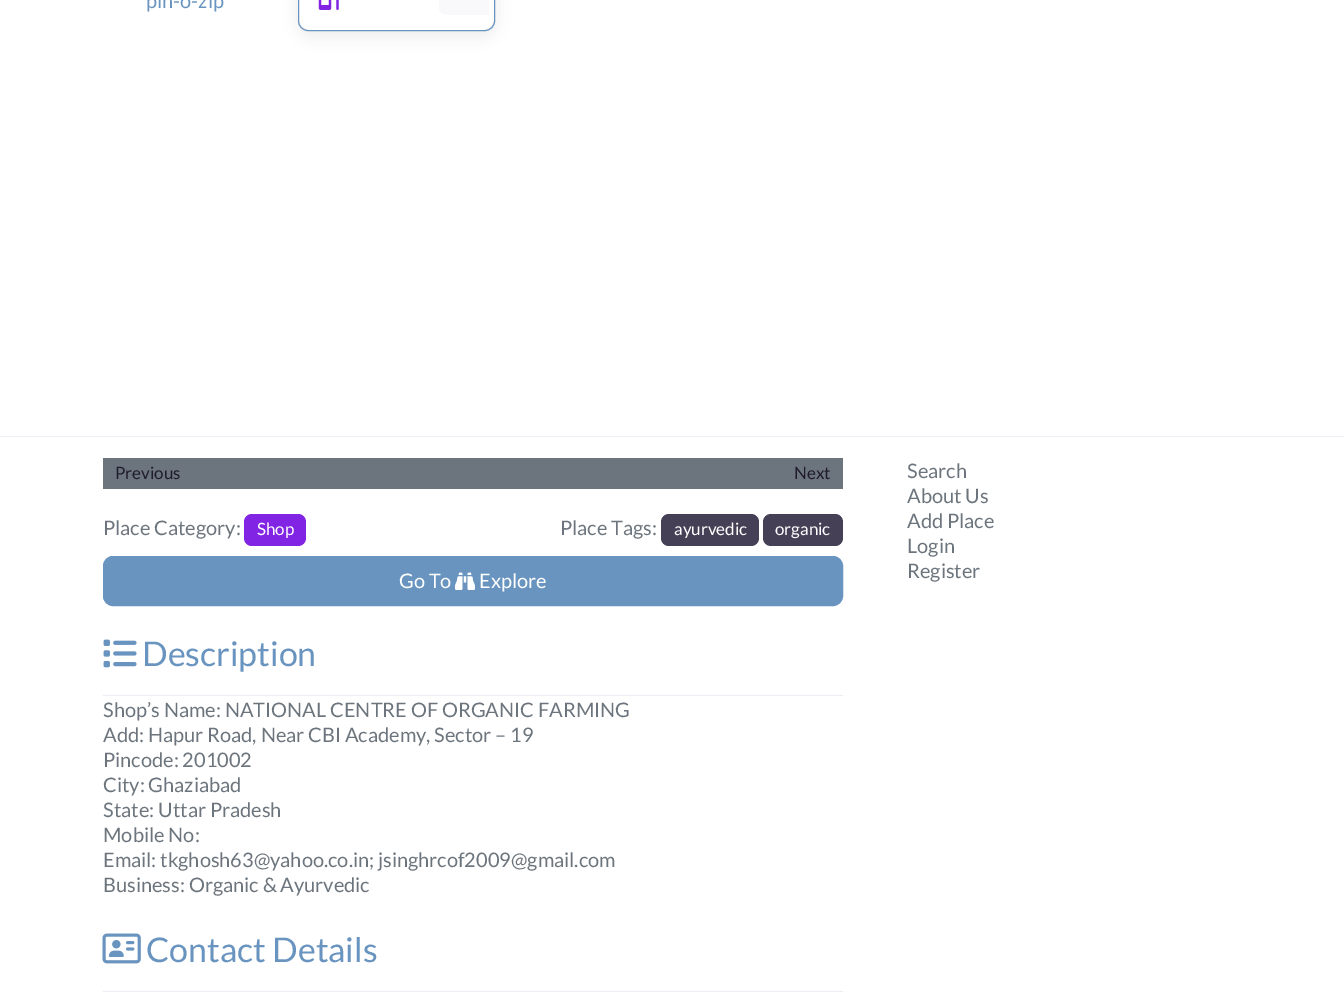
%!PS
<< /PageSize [1344 999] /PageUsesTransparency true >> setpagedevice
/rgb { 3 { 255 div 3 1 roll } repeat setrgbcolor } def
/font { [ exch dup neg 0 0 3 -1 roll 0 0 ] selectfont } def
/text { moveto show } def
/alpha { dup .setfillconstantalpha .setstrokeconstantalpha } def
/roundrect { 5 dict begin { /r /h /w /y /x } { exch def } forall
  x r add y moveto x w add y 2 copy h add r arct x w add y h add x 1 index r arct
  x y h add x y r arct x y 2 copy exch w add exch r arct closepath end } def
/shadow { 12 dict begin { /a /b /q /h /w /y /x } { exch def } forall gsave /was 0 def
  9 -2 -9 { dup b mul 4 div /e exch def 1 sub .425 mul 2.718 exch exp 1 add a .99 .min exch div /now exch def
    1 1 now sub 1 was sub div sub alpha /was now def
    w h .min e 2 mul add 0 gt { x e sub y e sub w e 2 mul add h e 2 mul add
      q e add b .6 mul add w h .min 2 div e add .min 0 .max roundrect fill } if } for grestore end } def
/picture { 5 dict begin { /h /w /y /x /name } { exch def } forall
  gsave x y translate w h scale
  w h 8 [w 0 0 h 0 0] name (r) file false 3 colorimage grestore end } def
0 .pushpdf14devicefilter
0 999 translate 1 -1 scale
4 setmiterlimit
255 255 255 rgb
0 0 1344 999 rectfill
239 236 243 rgb
0 436 1344 1 rectfill
gsave
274 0 moveto 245 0 rlineto 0 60 rlineto -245 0 rlineto closepath 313 -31 moveto 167 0 rlineto 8.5 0 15 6.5 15 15 rcurveto 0 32 rlineto 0 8.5 -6.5 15 -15 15 rcurveto -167 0 rlineto -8.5 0 -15 -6.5 -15 -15 rcurveto 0 -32 rlineto 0 -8.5 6.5 -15 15 -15 rcurveto closepath eoclip newpath
31 27 45 rgb
298 -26 197 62 15 7.5 0.08 shadow
grestore
105 148 191 rgb
298.5 -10.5 196 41 9.5 roundrect stroke
(img_01.rgb) 318 0 21 10 picture
249 248 250 rgb
447 -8 moveto 42 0 rlineto 0 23 rlineto -42 0 rlineto -4.5 0 -8 -3.5 -8 -8 rcurveto 0 -7 rlineto 0 -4.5 3.5 -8 8 -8 rcurveto closepath fill
108 117 125 rgb
103 458 740 31 rectfill
130 36 227 rgb
244 514 62 32 8 roundrect fill
69 64 86 rgb
661 514 98 32 8 roundrect fill
763 514 80 32 8 roundrect fill
105 148 191 rgb
103.5 556.5 739 49 9.5 roundrect gsave fill grestore
stroke
(img_02.rgb) 455 572 20 18 picture
(img_03.rgb) 103 639 34 29 picture
239 236 243 rgb
103 695 740 1 rectfill
(img_04.rgb) 102 933 39 31 picture
103 991 740 1 rectfill
/Lato-Regular 20 font
105 148 191 rgb
(pin-o-zip) 146 8 text
/Lato-Regular 17 font
31 27 45 rgb
(Previous) 115 479 text
(Next) 794 479 text
/Lato-Regular 20 font
108 117 125 rgb
(Place Category:) 103 535 text
/Lato-Regular 17 font
255 255 255 rgb
(Shop) 257 535 text
/Lato-Regular 20 font
108 117 125 rgb
(Place Tags:) 560 535 text
/Lato-Regular 17 font
255 255 255 rgb
(ayurvedic) 674 535 text
(organic) 775 535 text
/Lato-Regular 20 font
(Go To) 399 588 text
(Explore) 479 588 text
/Lato-Regular 34 font
105 148 191 rgb
(Description) 142 666 text
/Lato-Regular 20 font
108 117 125 rgb
(Shop’s Name: NATIONAL CENTRE OF ORGANIC FARMING) 103 717 text
(Add: Hapur Road, Near CBI Academy, Sector – 19) 103 742 text
(Pincode: 201002) 103 767 text
(City: Ghaziabad) 103 792 text
(State: Uttar Pradesh) 103 817 text
(Mobile No:) 103 842 text
(Email: tkghosh63@yahoo.co.in; jsinghrcof2009@gmail.com) 103 867 text
(Business: Organic & Ayurvedic) 103 892 text
/Lato-Regular 34 font
105 148 191 rgb
(Contact Details) 146 962 text
/Lato-Regular 20 font
108 117 125 rgb
(Search) 907 478 text
(About Us) 907 503 text
(Add Place) 907 528 text
(Login) 907 553 text
(Register) 907 578 text
.poppdf14devicefilter showpage
